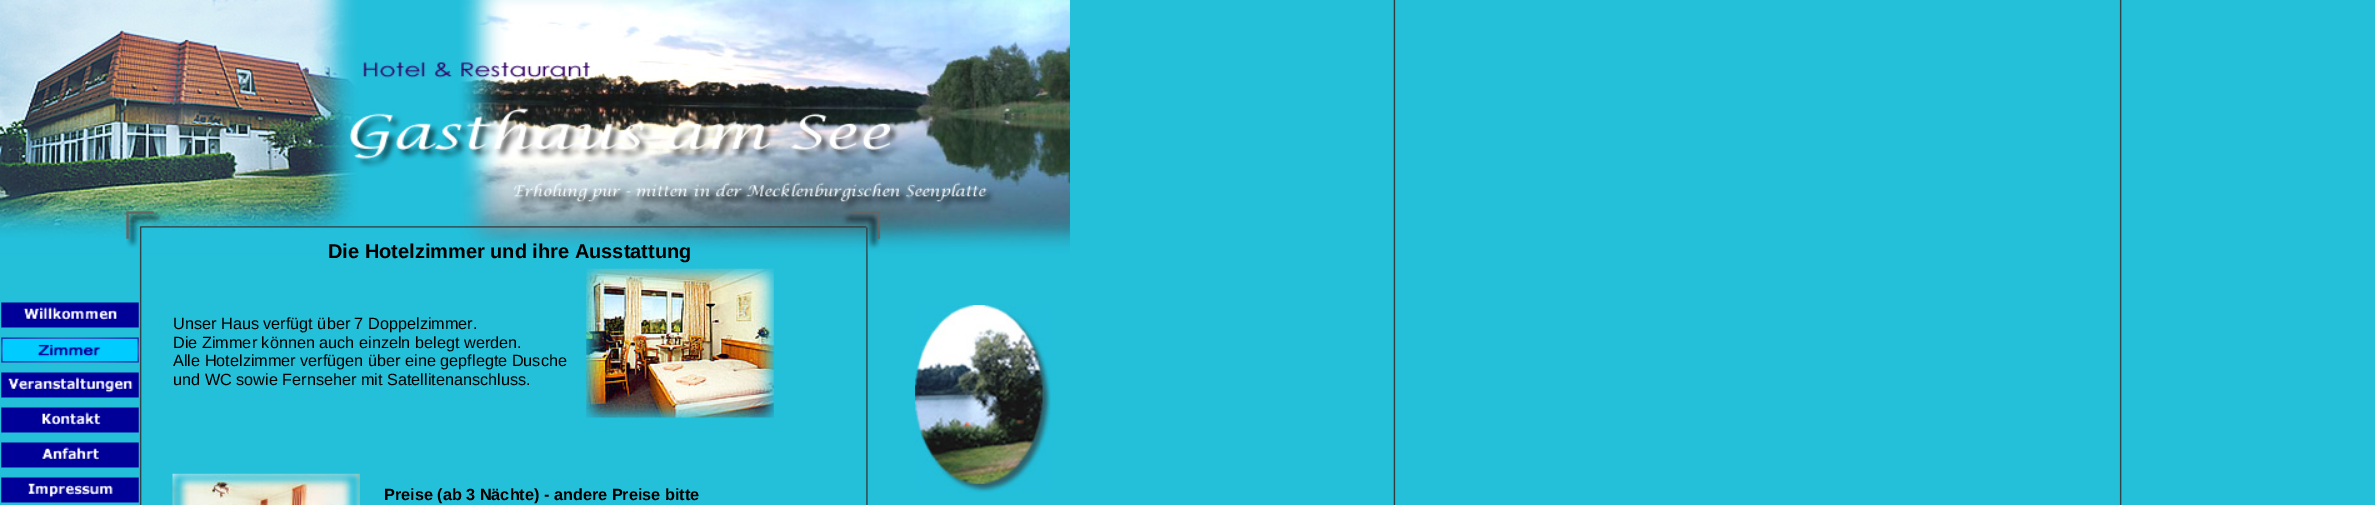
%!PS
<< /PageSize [2375 505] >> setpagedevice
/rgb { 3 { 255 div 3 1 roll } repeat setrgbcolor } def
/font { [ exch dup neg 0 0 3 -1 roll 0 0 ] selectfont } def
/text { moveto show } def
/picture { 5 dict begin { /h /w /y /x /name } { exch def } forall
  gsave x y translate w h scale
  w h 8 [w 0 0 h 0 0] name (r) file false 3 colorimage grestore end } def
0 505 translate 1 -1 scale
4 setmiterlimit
36 192 217 rgb
0 0 2375 505 rectfill
(img_01.rgb) 139 0 1983 505 picture
(img_02.rgb) 0 0 1070 254 picture
(img_03.rgb) 1 302 138 26 picture
(img_04.rgb) 1 337 138 26 picture
(img_05.rgb) 1 372 138 26 picture
(img_06.rgb) 1 407 138 26 picture
(img_07.rgb) 1 442 138 26 picture
(img_08.rgb) 1 477 138 26 picture
(img_09.rgb) 586 268 188 150 picture
(img_10.rgb) 172 473 188 32 picture
(img_11.rgb) 915 305 136 188 picture
/LiberationSans-Bold 20 font
0 0 0 rgb
(Die Hotelzimmer und ihre Ausstattung) 328 258 text
/LiberationSans-Regular 16.25 font
(Unser Haus verfügt über 7 Doppelzimmer.) 173 329 text
(Die Zimmer können auch einzeln belegt werden.) 173 348 text
(Alle Hotelzimmer verfügen über eine gepflegte Dusche) 173 366 text
(und WC sowie Fernseher mit Satellitenanschluss.) 173 385 text
/LiberationSans-Bold 16.25 font
(Preise \(ab 3 Nächte\) - andere Preise bitte) 384 500 text
showpage
